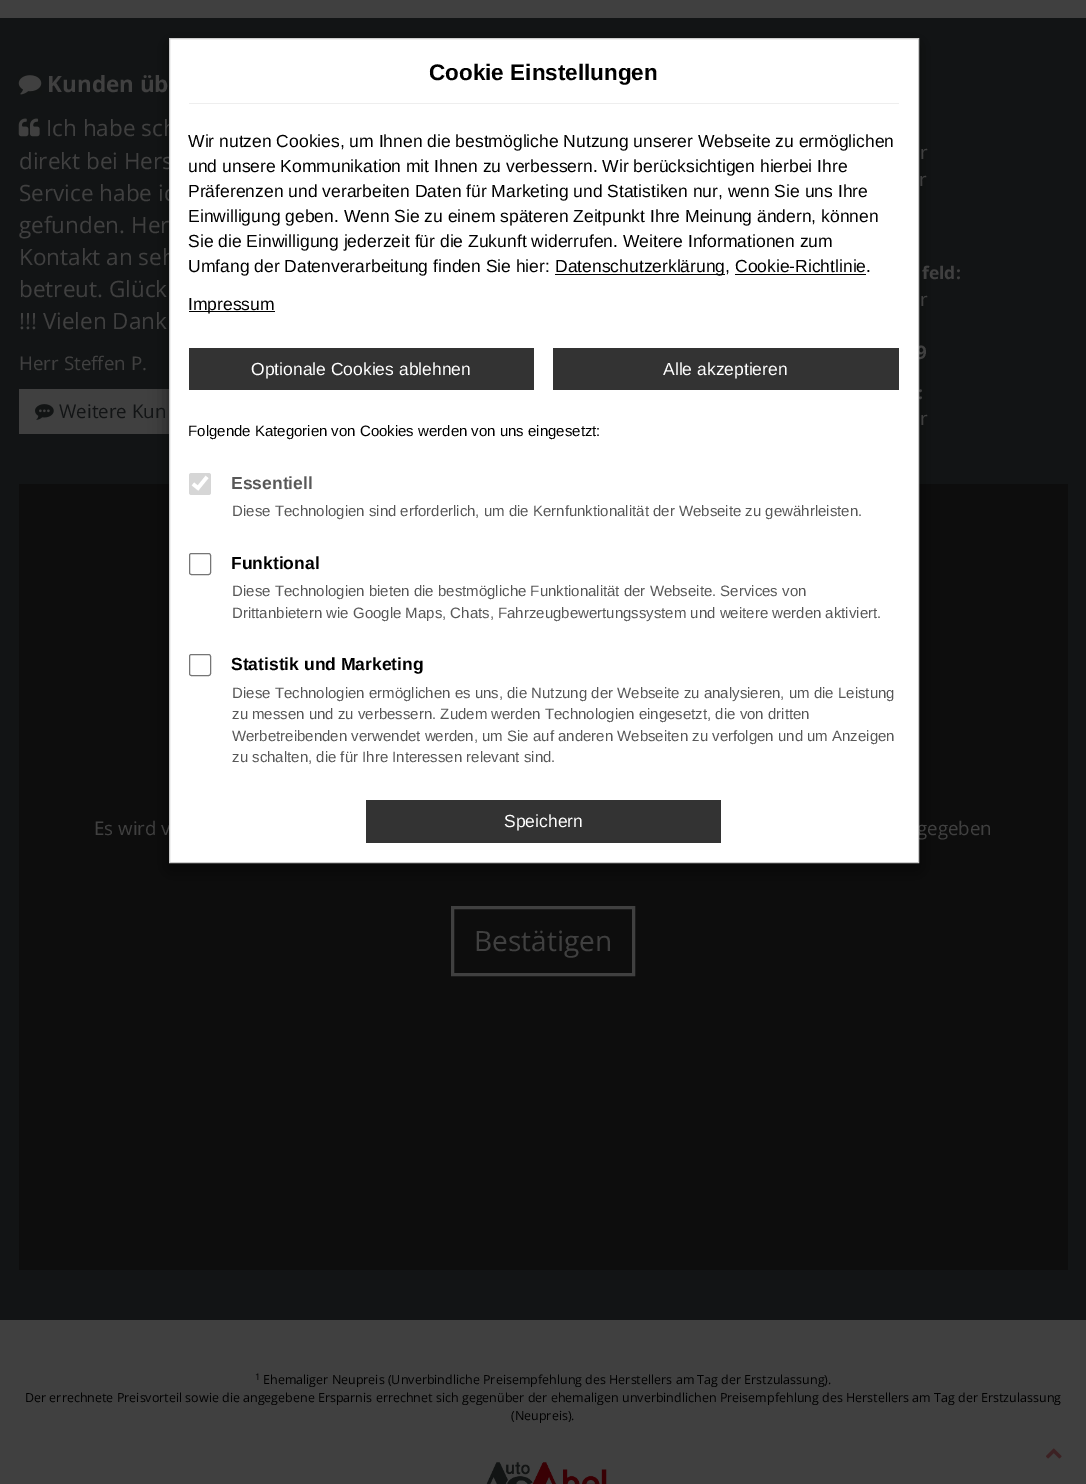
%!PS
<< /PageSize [1086 1484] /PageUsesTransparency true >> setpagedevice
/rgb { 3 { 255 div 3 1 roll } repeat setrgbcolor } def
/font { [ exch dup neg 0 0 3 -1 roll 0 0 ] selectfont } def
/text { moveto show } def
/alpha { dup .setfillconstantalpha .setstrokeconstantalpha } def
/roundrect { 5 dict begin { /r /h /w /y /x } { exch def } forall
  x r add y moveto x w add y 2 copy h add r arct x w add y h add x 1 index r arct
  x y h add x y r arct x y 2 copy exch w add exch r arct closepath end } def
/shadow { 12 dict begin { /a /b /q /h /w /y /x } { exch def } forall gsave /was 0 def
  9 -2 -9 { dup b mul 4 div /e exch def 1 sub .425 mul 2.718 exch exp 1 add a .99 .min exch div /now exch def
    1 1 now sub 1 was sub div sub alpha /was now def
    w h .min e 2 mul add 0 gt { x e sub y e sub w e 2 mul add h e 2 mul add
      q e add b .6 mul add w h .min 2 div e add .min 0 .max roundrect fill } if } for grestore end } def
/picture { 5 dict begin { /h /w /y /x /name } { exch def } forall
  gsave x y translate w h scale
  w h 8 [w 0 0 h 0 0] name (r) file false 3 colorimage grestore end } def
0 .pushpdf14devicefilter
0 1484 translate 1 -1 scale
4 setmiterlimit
64 64 64 rgb
0 0 1086 1484 rectfill
18 20 21 rgb
0 18 1086 1302 rectfill
64 64 64 rgb
19 389 150 45 rectfill
13 13 13 rgb
19 484 1049 786 rectfill
0 0 0 rgb
169 44 750 825 0 9.5 0.5 shadow
(img_01.rgb) 18 75 24 20 picture
(img_02.rgb) 18 118 22 19 picture
(img_03.rgb) 35 404 19 16 picture
64 64 64 rgb
3 setlinewidth
452.5 907.5 181 67 rectstroke
(img_04.rgb) 486 1462 121 22 picture
(img_05.rgb) 1046 1448 16 11 picture
/OpenSans-Bold 22.5 font
(Kunden üb) 47 92 text
/OpenSans-Regular 22.5 font
(Ich habe sch) 46 136 text
(direkt bei Hers) 19 169 text
(Service habe ic) 19 201 text
(gefunden. Her) 19 233 text
(Kontakt an seh) 19 265 text
(betreut. Glück) 19 297 text
(!!! Vielen Dank) 19 329 text
/OpenSans-Regular 18.75 font
(Herr Steffen P.) 19 370 text
18 20 21 rgb
(Weitere Kun) 59 418 text
64 64 64 rgb
(r) 920 159 text
(r) 919 186 text
/OpenSans-Bold 17.5 font
(feld:) 922 279 text
/OpenSans-Regular 18.75 font
(r) 920 306 text
/OpenSans-Bold 18.75 font
(9) 916 359 text
/OpenSans-Bold 17.5 font
(:) 918 399 text
/OpenSans-Regular 18.75 font
(r) 920 425 text
(Es wird v) 94 835 text
(gegeben) 917 835 text
255 255 255 rgb
169.5 38.5 moveto 749 0 rlineto 0 824 rlineto -749 0 rlineto closepath gsave fill grestore
204 204 204 rgb
1 setlinewidth
stroke
118 118 118 rgb
189.5 654.5 21 21 2 roundrect stroke
/LiberationSans-Regular 15 font
88 88 88 rgb
(zu schalten, die für Ihre Interessen relevant sind.) 232 762 text
(Werbetreibenden verwendet werden, um Sie auf anderen Webseiten zu verfolgen und um Anzeigen) 232 741 text
(zu messen und zu verbessern. Zudem werden Technologien eingesetzt, die von dritten) 232 719 text
(Diese Technologien ermöglichen es uns, die Nutzung der Webseite zu analysieren, um die Leistung) 232 698 text
/LiberationSans-Bold 17.5 font
0 0 0 rgb
(Statistik und Marketing) 231 670 text
118 118 118 rgb
189.5 553.5 21 21 2 roundrect stroke
/LiberationSans-Regular 15 font
88 88 88 rgb
(Drittanbietern wie Google Maps, Chats, Fahrzeugbewertungssystem und weitere werden aktiviert.) 232 618 text
(Diese Technologien bieten die bestmögliche Funktionalität der Webseite. Services von) 232 596 text
/LiberationSans-Bold 17.5 font
0 0 0 rgb
(Funktional) 231 569 text
214 214 214 rgb
189 473 22 22 2.5 roundrect fill
255 255 255 rgb
3.6 setlinewidth
193 484 moveto 5 4 rlineto 9 -11 rlineto stroke
/LiberationSans-Regular 15 font
88 88 88 rgb
(Diese Technologien sind erforderlich, um die Kernfunktionalität der Webseite zu gewährleisten.) 232 516 text
/LiberationSans-Bold 17.5 font
(Essentiell) 231 489 text
51 51 51 rgb
366 800 355 43 rectfill
/LiberationSans-Regular 17.5 font
255 255 255 rgb
(Speichern) 504 827 text
/LiberationSans-Regular 15 font
0 0 0 rgb
(Folgende Kategorien von Cookies werden von uns eingesetzt:) 188 436 text
51 51 51 rgb
553 348 346 42 rectfill
/LiberationSans-Regular 17.5 font
255 255 255 rgb
(Alle akzeptieren) 663 375 text
51 51 51 rgb
189 348 345 42 rectfill
255 255 255 rgb
(Optionale Cookies ablehnen) 251 375 text
0 0 0 rgb
189 311 86 1 rectfill
(Impressum) 188 310 text
735 274 131 1 rectfill
555 274 170 1 rectfill
(Datenschutzerklärung, Cookie-Richtlinie.) 555 272 text
(Umfang der Datenverarbeitung finden Sie hier:) 188 272 text
(Sie die Einwilligung jederzeit für die Zukunft widerrufen. Weitere Informationen zum) 188 247 text
(Einwilligung geben. Wenn Sie zu einem späteren Zeitpunkt Ihre Meinung ändern, können) 188 222 text
(Präferenzen und verarbeiten Daten für Marketing und Statistiken nur, wenn Sie uns Ihre) 188 197 text
(und unsere Kommunikation mit Ihnen zu verbessern. Wir berücksichtigen hierbei Ihre) 188 172 text
(Wir nutzen Cookies, um Ihnen die bestmögliche Nutzung unserer Webseite zu ermöglichen) 188 147 text
/LiberationSans-Bold 22.5 font
(Cookie Einstellungen) 429 80 text
238 238 238 rgb
189 103 710 1 rectfill
/OpenSans-Regular 28 font
64 64 64 rgb
(Bestätigen) 474 951 text
/OpenSans-Regular 9 font
0 0 0 rgb
(1) 255 1380 text
/OpenSans-Regular 12.5 font
(Ehemaliger Neupreis \(Unverbindliche Preisempfehlung des Herstellers am Tag der Erstzulassung\).) 263 1384 text
(Der errechnete Preisvorteil sowie die angegebene Ersparnis errechnet sich gegenüber der ehemaligen unverbindlichen Preisempfehlung des Herstellers am Tag der Erstzulassung) 25 1402 text
(\(Neupreis\).) 511 1420 text
.poppdf14devicefilter showpage
